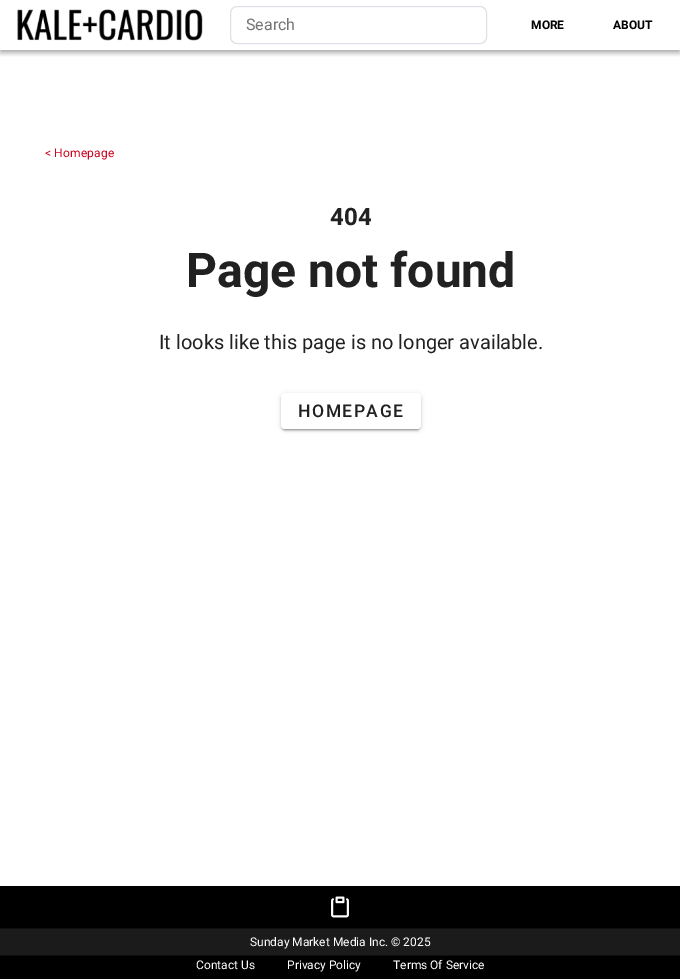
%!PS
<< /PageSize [680 979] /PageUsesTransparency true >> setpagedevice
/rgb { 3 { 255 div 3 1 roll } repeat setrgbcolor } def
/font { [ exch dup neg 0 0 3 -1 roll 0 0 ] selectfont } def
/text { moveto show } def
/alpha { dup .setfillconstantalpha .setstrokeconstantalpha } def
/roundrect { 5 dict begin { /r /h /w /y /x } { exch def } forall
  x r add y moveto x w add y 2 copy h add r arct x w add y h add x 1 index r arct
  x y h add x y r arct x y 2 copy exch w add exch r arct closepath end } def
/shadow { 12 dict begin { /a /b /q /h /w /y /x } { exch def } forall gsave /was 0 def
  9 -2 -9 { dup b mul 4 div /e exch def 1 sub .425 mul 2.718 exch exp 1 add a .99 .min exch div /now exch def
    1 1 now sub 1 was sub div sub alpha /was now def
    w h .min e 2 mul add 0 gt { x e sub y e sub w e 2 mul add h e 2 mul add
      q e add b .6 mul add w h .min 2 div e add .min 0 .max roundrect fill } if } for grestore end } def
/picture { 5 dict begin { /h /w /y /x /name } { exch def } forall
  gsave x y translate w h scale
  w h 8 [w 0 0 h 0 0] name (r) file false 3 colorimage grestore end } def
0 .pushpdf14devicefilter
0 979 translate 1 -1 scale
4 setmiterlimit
255 255 255 rgb
0 0 680 979 rectfill
gsave
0 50 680 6 rectclip
0 0 0 rgb
0 1 680 50 0 5 0.12 shadow
grestore
gsave
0 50 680 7 rectclip
0 0 0 rgb
0 4 680 50 0 2.5 0.14 shadow
grestore
gsave
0 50 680 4 rectclip
0 0 0 rgb
1 3 678 48 0 2 0.2 shadow
grestore
(img_01.rgb) 17 9 186 32 picture
222 226 230 rgb
230.5 6.5 256 37 6.5 roundrect stroke
0 0 0 rgb
281 394 140 36 4 2.5 0.12 shadow
281 395 140 36 4 1 0.14 shadow
283 398 136 32 2 0.5 0.2 shadow
255 255 255 rgb
281 393 140 36 4 roundrect fill
0 0 0 rgb
0 886 680 93 rectfill
(img_02.rgb) 331 896 18 22 picture
15 15 15 rgb
0 928 680 1 rectfill
27 27 27 rgb
0 929 680 26 rectfill
15 15 15 rgb
0 955 680 1 rectfill
/Roboto-Regular 16 font
117 117 117 rgb
(Search) 246 30 text
/Roboto-Bold 12 font
0 0 0 rgb
(MORE) 531 29 text
(ABOUT) 613 29 text
/Roboto-Regular 12 font
202 5 33 rgb
45 157 moveto 0.25 0 (<) ashow
54 157 moveto 0.25 0 (Homepage) ashow
/Roboto-Bold 24 font
33 33 33 rgb
(404) 330 225 text
/Roboto-Bold 48 font
(Page not found) 186 287 text
/Roboto-Regular 20 font
(It looks like this page is no longer available.) 159 349 text
/Roboto-Medium 17.5 font
298 417 moveto 1.5 0 (HOMEPAGE) ashow
/Roboto-Regular 12 font
255 255 255 rgb
(Sunday Market Media Inc. © 2025) 250 946 text
(Contact Us) 196 969 text
(Privacy Policy) 287 969 text
(Terms Of Service) 393 969 text
.poppdf14devicefilter showpage
